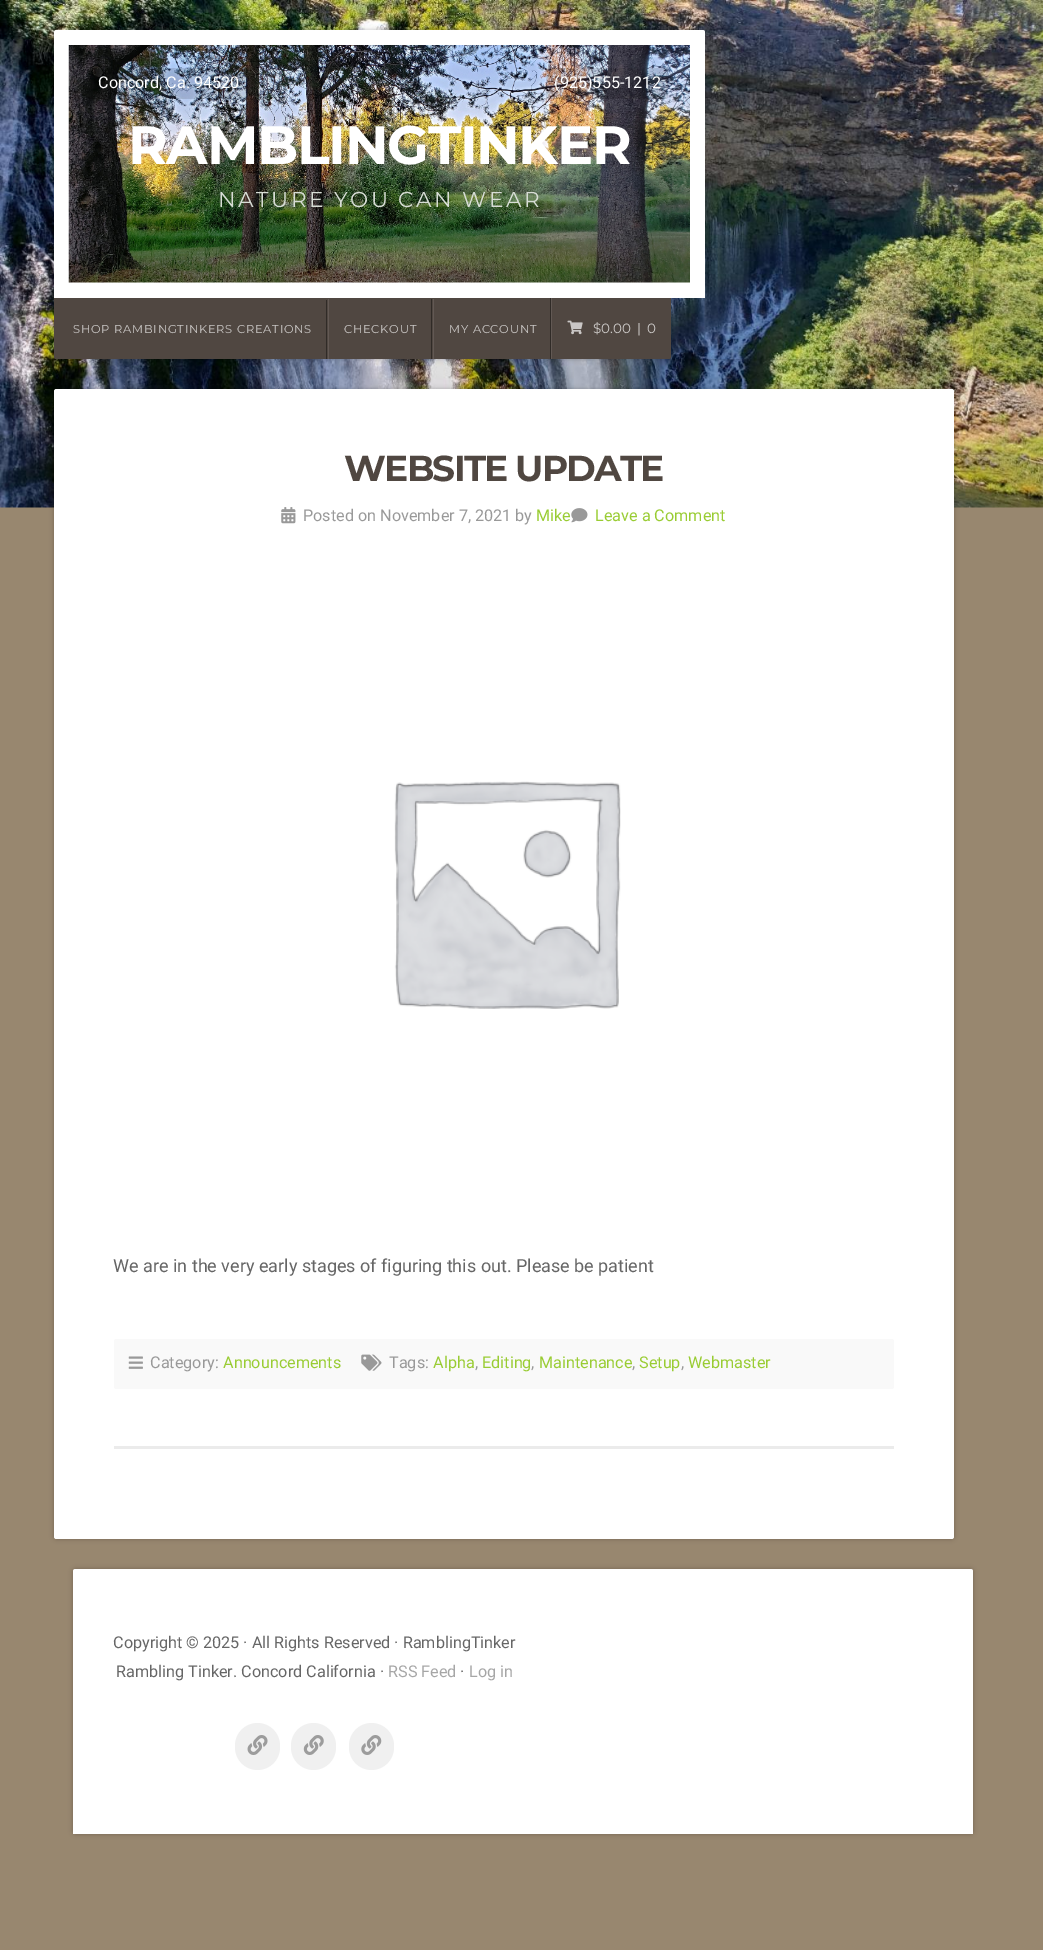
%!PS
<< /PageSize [1043 1950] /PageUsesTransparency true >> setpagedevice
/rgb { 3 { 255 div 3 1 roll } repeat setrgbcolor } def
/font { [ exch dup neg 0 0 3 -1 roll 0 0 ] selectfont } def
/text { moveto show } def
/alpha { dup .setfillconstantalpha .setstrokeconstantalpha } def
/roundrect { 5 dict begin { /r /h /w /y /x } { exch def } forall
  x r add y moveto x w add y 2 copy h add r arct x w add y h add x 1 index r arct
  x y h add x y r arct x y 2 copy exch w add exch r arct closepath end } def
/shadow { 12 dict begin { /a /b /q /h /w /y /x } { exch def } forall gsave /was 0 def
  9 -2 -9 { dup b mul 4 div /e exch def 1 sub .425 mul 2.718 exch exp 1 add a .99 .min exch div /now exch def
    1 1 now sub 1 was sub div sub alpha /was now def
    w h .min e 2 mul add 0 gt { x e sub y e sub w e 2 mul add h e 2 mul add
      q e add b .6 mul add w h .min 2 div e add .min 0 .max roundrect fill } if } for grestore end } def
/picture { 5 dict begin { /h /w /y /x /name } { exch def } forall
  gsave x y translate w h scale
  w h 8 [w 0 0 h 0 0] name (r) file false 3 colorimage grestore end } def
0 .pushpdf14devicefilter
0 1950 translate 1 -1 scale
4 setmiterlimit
152 135 111 rgb
0 0 1043 1950 rectfill
(img_01.rgb) 0 0 1043 508 picture
gsave
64 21 moveto 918 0 rlineto 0 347 rlineto -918 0 rlineto closepath 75.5 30 moveto 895 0 rlineto 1.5 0 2.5 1 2.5 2.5 rcurveto 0 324 rlineto 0 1.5 -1 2.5 -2.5 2.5 rcurveto -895 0 rlineto -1.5 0 -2.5 -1 -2.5 -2.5 rcurveto 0 -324 rlineto 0 -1.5 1 -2.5 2.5 -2.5 rcurveto closepath eoclip newpath
0 0 0 rgb
73 30 900 329 2.5 2.5 0.24 shadow
grestore
255 255 255 rgb
56.5 30 moveto 646 0 rlineto 1.5 0 2.5 1 2.5 2.5 rcurveto 0 265.5 rlineto -651 0 rlineto 0 -265.5 rlineto 0 -1.5 1 -2.5 2.5 -2.5 rcurveto closepath fill
(img_02.rgb) 68 45 622 238 picture
0.12 alpha
0 0 0 rgb
91 68 157 31 2.5 roundrect fill
546 68 122 31 2.5 roundrect fill
1 alpha
80 71 65 rgb
54 298 moveto 617 0 rlineto 0 58.5 rlineto 0 1.5 -1 2.5 -2.5 2.5 rcurveto -612 0 rlineto -1.5 0 -2.5 -1 -2.5 -2.5 rcurveto closepath fill
48 43 39 rgb
326 300 1 59 rectfill
431 299 1 60 rectfill
98 89 84 rgb
328 299 1 60 rectfill
433 299 1 60 rectfill
48 43 39 rgb
550 298 1 61 rectfill
98 89 84 rgb
551 298 1 61 rectfill
(img_03.rgb) 567 320 16 15 picture
0 0 0 rgb
54 389 900 1150 2.5 2.5 0.24 shadow
255 255 255 rgb
54 389 900 1150 2.5 roundrect fill
235 235 235 rgb
114 1446 780 3 rectfill
(img_04.rgb) 281 507 15 17 picture
(img_05.rgb) 571 508 17 15 picture
(img_06.rgb) 394 781 227 228 picture
249 249 249 rgb
114 1339 780 50 2.5 roundrect fill
(img_07.rgb) 128 1356 15 13 picture
(img_08.rgb) 361 1354 21 17 picture
0 0 0 rgb
73 1569 900 265 2.5 2.5 0.24 shadow
255 255 255 rgb
75.5 1569 moveto 895 0 rlineto 1.5 0 2.5 1 2.5 2.5 rcurveto 0 262.5 rlineto -900 0 rlineto 0 -262.5 rlineto 0 -1.5 1 -2.5 2.5 -2.5 rcurveto closepath fill
240 240 240 rgb
235 1723 45 47 22.5 roundrect fill
(img_09.rgb) 247 1735 21 20 picture
291 1723 45 47 22.5 roundrect fill
(img_10.rgb) 303 1735 21 20 picture
349 1723 45 47 22.5 roundrect fill
(img_11.rgb) 361 1735 21 20 picture
/Roboto-Regular 16.2 font
255 255 255 rgb
(Concord, Ca. 94520) 98 88 text
(\(925\)555-1212) 554 88 text
/Montserrat-Bold 54 font
128 164 moveto -1.25 0 (RAMBLINGTINKER) ashow
/Montserrat-Regular 21.6 font
216 221 214 rgb
218 207 moveto 2.5 0 (NATURE YOU CAN WEAR) ashow
/Montserrat-Regular 11.5 font
203 200 198 rgb
73 333 moveto 0.75 0 (SHOP RAMBINGTINKERS CREATIONS) ashow
344 333 moveto 0.75 0 (CHECKOUT) ashow
449 333 moveto 0.75 0 (MY ACCOUNT) ashow
/Montserrat-Regular 13.5 font
($0.00) 593 333 text
(|) 637 333 text
(0) 647 333 text
/Montserrat-Bold 36 font
80 71 65 rgb
344 481 moveto -1.75 0 (WEBSITE UPDATE) ashow
/Roboto-Regular 16.2 font
153 153 153 rgb
(Posted on November 7, 2021 by) 303 521 text
153 204 51 rgb
(Mike) 536 521 text
(Leave a Comment) 595 521 text
/Roboto-Regular 18 font
102 102 102 rgb
(We are in the very early stages of figuring this out. Please be patient) 113 1272 text
/Roboto-Regular 16.2 font
153 153 153 rgb
(Category:) 150 1368 text
153 204 51 rgb
(Announcements) 223 1368 text
153 153 153 rgb
(Tags:) 389 1368 text
153 204 51 rgb
(Alpha) 433 1368 text
153 153 153 rgb
(,) 475 1368 text
153 204 51 rgb
(Editing) 482 1368 text
153 153 153 rgb
(,) 531 1368 text
153 204 51 rgb
(Maintenance) 539 1368 text
153 153 153 rgb
(,) 632 1368 text
153 204 51 rgb
(Setup) 639 1368 text
153 153 153 rgb
(,) 681 1368 text
153 204 51 rgb
(Webmaster) 688 1368 text
102 102 102 rgb
(Copyright © 2025 · All Rights Reserved · RamblingTinker) 113 1648 text
(Rambling Tinker. Concord California ·) 116 1677 text
166 166 166 rgb
(RSS Feed) 388 1677 text
102 102 102 rgb
(·) 460 1677 text
166 166 166 rgb
(Log in) 469 1677 text
.poppdf14devicefilter showpage
